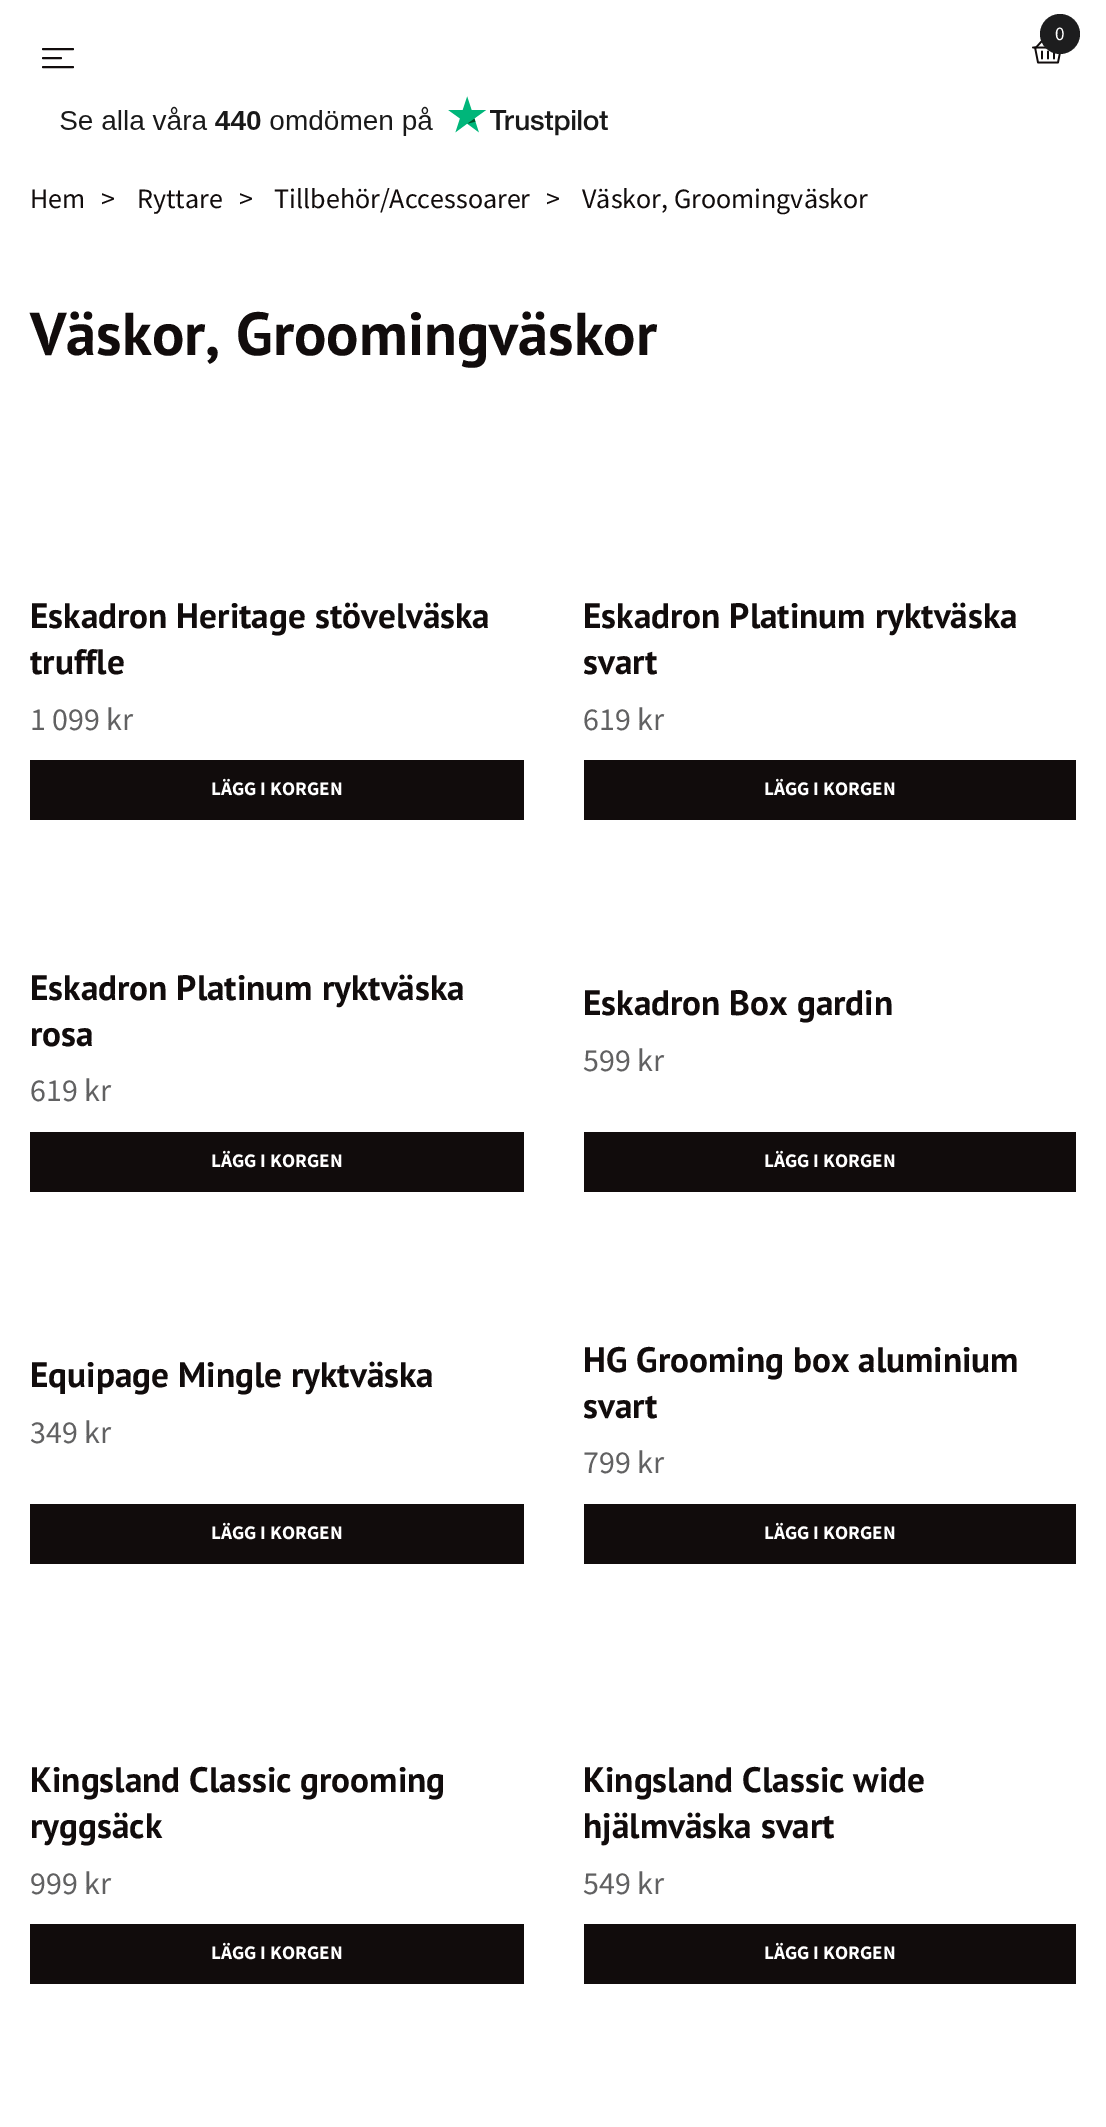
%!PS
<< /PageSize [1106 2127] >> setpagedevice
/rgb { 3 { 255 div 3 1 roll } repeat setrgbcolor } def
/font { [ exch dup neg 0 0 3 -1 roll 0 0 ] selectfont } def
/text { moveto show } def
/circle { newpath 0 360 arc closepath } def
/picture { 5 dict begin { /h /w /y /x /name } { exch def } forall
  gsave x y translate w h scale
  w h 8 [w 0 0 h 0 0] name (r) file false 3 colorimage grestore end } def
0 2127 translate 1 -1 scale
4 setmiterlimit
255 255 255 rgb
0 0 1106 2127 rectfill
(img_01.rgb) 1032 40 29 24 picture
29 29 30 rgb
1060 34 20 circle fill
17 12 12 rgb
2 setlinewidth
1 setlinecap
1 setlinejoin
43 49 moveto 30 0 rlineto 43 58 moveto 18 0 rlineto 43 67 moveto 30 0 rlineto stroke
(img_02.rgb) 60 96 548 40 picture
30 760 494 60 rectfill
584 760 492 60 rectfill
30 1132 494 60 rectfill
584 1132 492 60 rectfill
30 1504 494 60 rectfill
584 1504 492 60 rectfill
30 1924 494 60 rectfill
584 1924 492 60 rectfill
/SourceSansPro-Regular 19.25 font
255 255 255 rgb
(0) 1055 40 text
/SourceSansPro-Regular 28 font
17 12 12 rgb
(Hem) 30 208 text
(>) 101 208 text
(Ryttare) 137 208 text
(>) 239 208 text
(Tillbehör/Accessoarer) 274 208 text
(>) 546 208 text
(Väskor, Groomingväskor) 582 208 text
/PTSans-Bold 60.5 font
(Väskor, Groomingväskor) 30 355 text
/PTSans-Bold 35.25 font
(Eskadron Heritage stövelväska) 30 628 text
(truffle) 30 674 text
/SourceSansPro-Regular 32 font
97 97 98 rgb
(1 099 kr) 30 730 text
/SourceSansPro-Bold 19.25 font
255 255 255 rgb
(LÄGG I KORGEN) 211 795 text
/PTSans-Bold 35.25 font
17 12 12 rgb
(Eskadron Platinum ryktväska) 583 628 text
(svart) 583 674 text
/SourceSansPro-Regular 32 font
97 97 98 rgb
(619 kr) 583 730 text
/SourceSansPro-Bold 19.25 font
255 255 255 rgb
(LÄGG I KORGEN) 764 795 text
/PTSans-Bold 35.25 font
17 12 12 rgb
(Eskadron Platinum ryktväska) 30 1000 text
(rosa) 30 1046 text
/SourceSansPro-Regular 32 font
97 97 98 rgb
(619 kr) 30 1101 text
/SourceSansPro-Bold 19.25 font
255 255 255 rgb
(LÄGG I KORGEN) 211 1167 text
/PTSans-Bold 35.25 font
17 12 12 rgb
(Eskadron Box gardin) 583 1015 text
/SourceSansPro-Regular 32 font
97 97 98 rgb
(599 kr) 583 1071 text
/SourceSansPro-Bold 19.25 font
255 255 255 rgb
(LÄGG I KORGEN) 764 1167 text
/PTSans-Bold 35.25 font
17 12 12 rgb
(Equipage Mingle ryktväska) 30 1387 text
/SourceSansPro-Regular 32 font
97 97 98 rgb
(349 kr) 30 1443 text
/SourceSansPro-Bold 19.25 font
255 255 255 rgb
(LÄGG I KORGEN) 211 1539 text
/PTSans-Bold 35.25 font
17 12 12 rgb
(HG Grooming box aluminium) 583 1372 text
(svart) 583 1418 text
/SourceSansPro-Regular 32 font
97 97 98 rgb
(799 kr) 583 1473 text
/SourceSansPro-Bold 19.25 font
255 255 255 rgb
(LÄGG I KORGEN) 764 1539 text
/PTSans-Bold 35.25 font
17 12 12 rgb
(Kingsland Classic grooming) 30 1792 text
(ryggsäck) 30 1838 text
/SourceSansPro-Regular 32 font
97 97 98 rgb
(999 kr) 30 1894 text
/SourceSansPro-Bold 19.25 font
255 255 255 rgb
(LÄGG I KORGEN) 211 1959 text
/PTSans-Bold 35.25 font
17 12 12 rgb
(Kingsland Classic wide) 583 1792 text
(hjälmväska svart) 583 1838 text
/SourceSansPro-Regular 32 font
97 97 98 rgb
(549 kr) 583 1894 text
/SourceSansPro-Bold 19.25 font
255 255 255 rgb
(LÄGG I KORGEN) 764 1959 text
showpage
